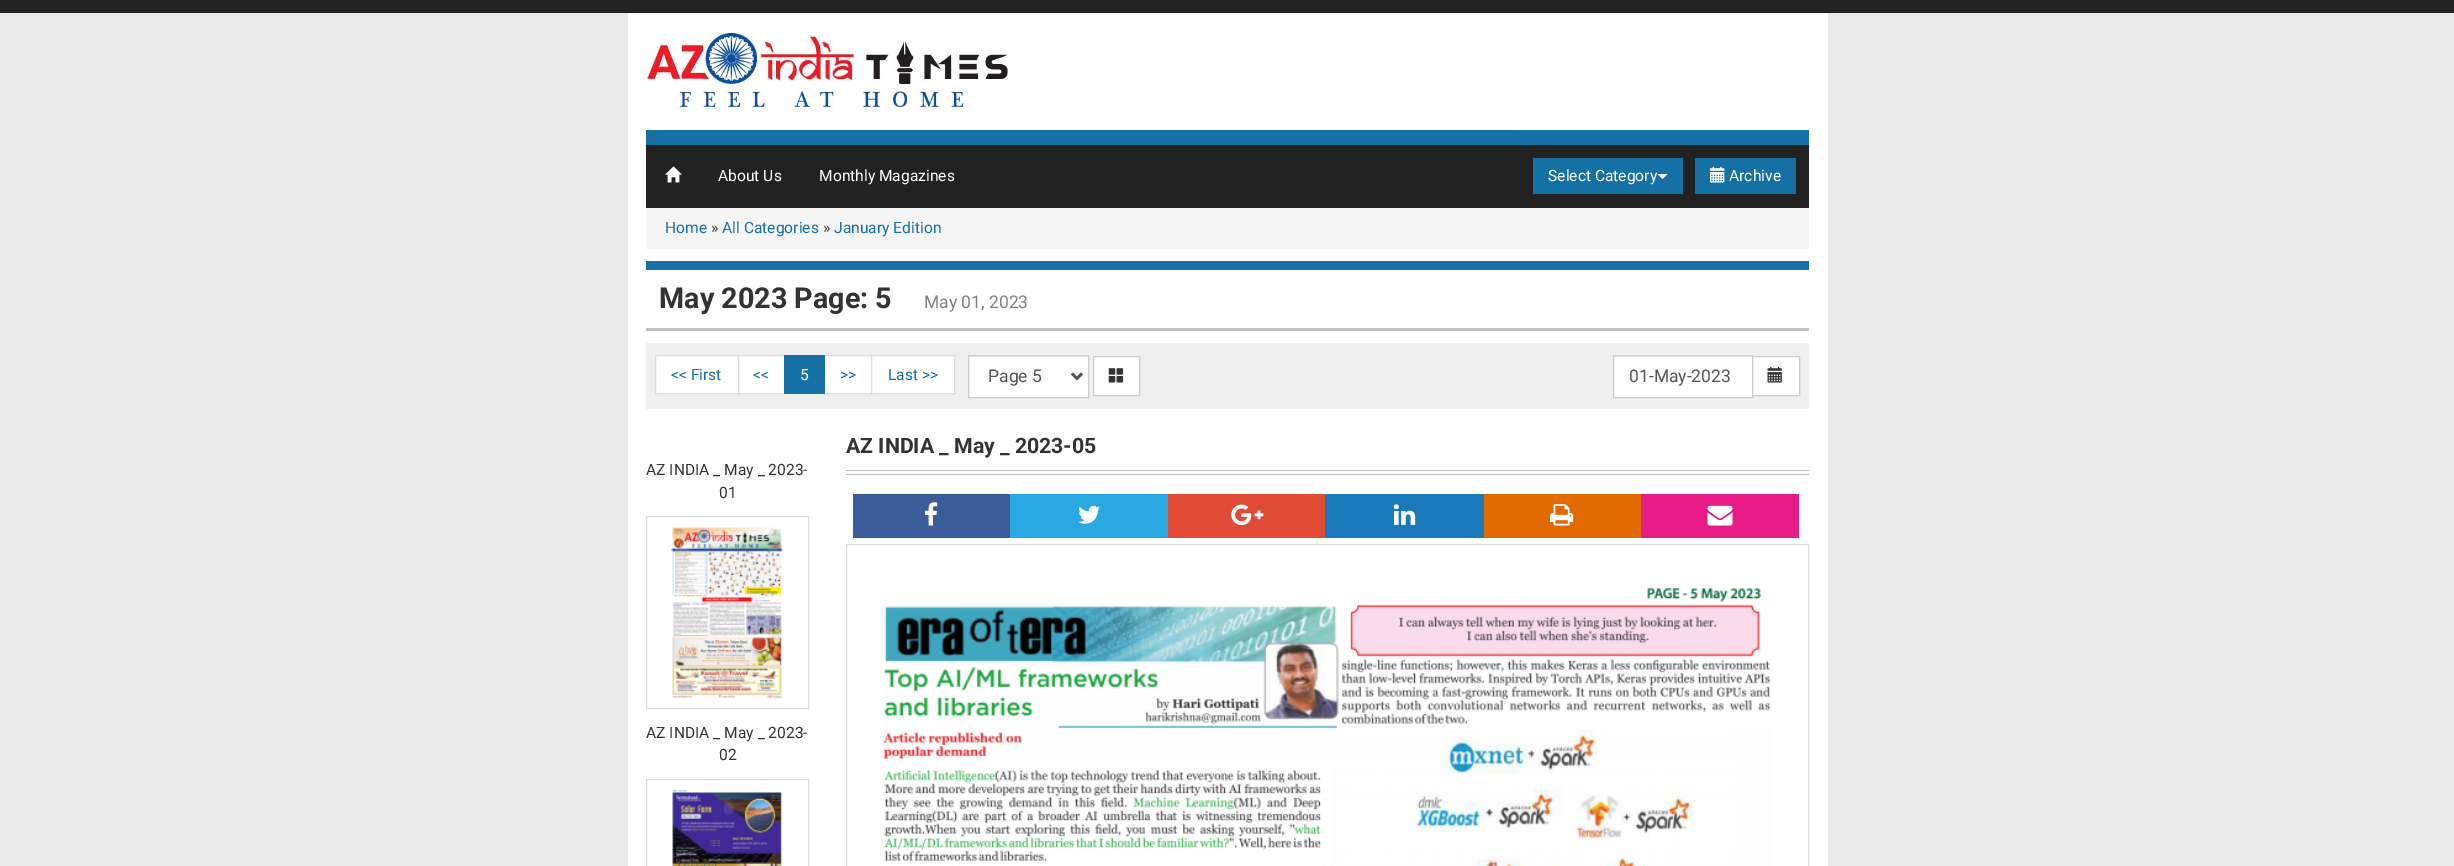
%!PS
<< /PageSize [2454 866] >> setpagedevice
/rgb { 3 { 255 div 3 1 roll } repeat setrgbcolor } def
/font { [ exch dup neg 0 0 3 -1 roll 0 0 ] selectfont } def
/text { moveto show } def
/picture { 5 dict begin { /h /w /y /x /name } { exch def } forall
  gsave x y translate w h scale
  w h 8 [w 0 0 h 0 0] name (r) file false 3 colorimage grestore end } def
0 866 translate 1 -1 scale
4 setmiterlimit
234 234 234 rgb
0 0 2454 866 rectfill
34 34 34 rgb
0 0 2454 13 rectfill
255 255 255 rgb
628 13 1200 853 rectfill
(img_01.rgb) 646 31 363 80 picture
21 112 166 rgb
646 130 1163 15 rectfill
34 34 34 rgb
646 145 1163 63 rectfill
(img_02.rgb) 665 166 17 17 picture
21 112 166 rgb
1533 158 150 36 rectfill
255 255 255 rgb
1657.5 174 moveto 10 0 rlineto -5 5 rlineto closepath fill
21 112 166 rgb
1695 158 101 36 rectfill
(img_03.rgb) 1710 166 15 17 picture
245 245 245 rgb
646 208 1163 41 rectfill
21 112 166 rgb
646 261 1163 9 rectfill
192 192 192 rgb
646 328 1163 3 rectfill
239 239 239 rgb
646 343 1163 66 rectfill
255 255 255 rgb
655.5 355.5 moveto 83 0 rlineto 0 38 rlineto -83 0 rlineto closepath gsave fill grestore
221 221 221 rgb
stroke
255 255 255 rgb
738.5 355.5 moveto 46 0 rlineto 0 38 rlineto -46 0 rlineto closepath gsave fill grestore
221 221 221 rgb
stroke
255 255 255 rgb
825 356 46 37 rectfill
221 221 221 rgb
824.5 355.5 48 38 rectstroke
21 112 166 rgb
784 355 41 39 rectfill
255 255 255 rgb
871.5 355.5 moveto 83 0 rlineto 0 38 rlineto -83 0 rlineto closepath gsave fill grestore
221 221 221 rgb
stroke
255 255 255 rgb
969 357 119 40 rectfill
236 236 236 rgb
969 356 119 1 rectfill
204 204 204 rgb
968.5 355.5 120 42 rectstroke
85 85 85 rgb
2.5 setlinewidth
1072 373.5 moveto 5 5 rlineto 5 -5 rlineto stroke
255 255 255 rgb
1093.5 356.5 moveto 46 0 rlineto 0 39 rlineto -46 0 rlineto closepath gsave fill grestore
204 204 204 rgb
1 setlinewidth
stroke
(img_04.rgb) 1108 368 16 15 picture
255 255 255 rgb
1753 357 46 38 rectfill
204 204 204 rgb
1751.5 356.5 48 39 rectstroke
255 255 255 rgb
1614 356 138 41 rectfill
236 236 236 rgb
1614 356 137 1 rectfill
204 204 204 rgb
1613.5 355.5 139 42 rectstroke
(img_05.rgb) 1767 366 15 17 picture
192 192 192 rgb
846 470 963 1 rectfill
846 474 963 1 rectfill
59 91 153 rgb
853 494 157 44 rectfill
(img_06.rgb) 925 502 13 24 picture
41 168 225 rgb
1010 494 158 44 rectfill
(img_07.rgb) 1078 505 22 19 picture
225 75 54 rgb
1168 494 157 44 rectfill
(img_08.rgb) 1231 504 33 22 picture
25 121 187 rgb
1325 494 159 44 rectfill
(img_09.rgb) 1393 504 23 21 picture
226 105 0 rgb
1484 494 157 44 rectfill
(img_10.rgb) 1550 504 24 22 picture
232 26 134 rgb
1641 494 158 44 rectfill
(img_11.rgb) 1707 505 26 21 picture
221 221 221 rgb
846.5 544.5 962 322 rectstroke
(img_12.rgb) 883 587 888 279 picture
646.5 516.5 162 192 rectstroke
(img_13.rgb) 671 527 112 172 picture
646.5 779.5 162 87 rectstroke
(img_14.rgb) 672 789 110 77 picture
/Roboto-Regular 15.6 font
255 255 255 rgb
(About Us) 718 181 text
(Monthly Magazines) 819 181 text
(Select Category) 1548 181 text
(Archive) 1729 181 text
21 112 166 rgb
(Home) 665 233 text
51 51 51 rgb
(») 711 233 text
21 112 166 rgb
(All Categories) 722 233 text
51 51 51 rgb
(») 823 233 text
21 112 166 rgb
(January Edition) 834 233 text
/Roboto-Bold 28.75 font
51 51 51 rgb
(May 2023 Page: 5) 659 308 text
/Roboto-Regular 17.5 font
128 128 128 rgb
(May 01, 2023) 924 308 text
/Roboto-Regular 15.6 font
21 112 166 rgb
(<< First) 671 380 text
(<<) 753 380 text
255 255 255 rgb
(5) 800 380 text
21 112 166 rgb
(>>) 840 380 text
(Last >>) 888 380 text
/Roboto-Regular 17.5 font
85 85 85 rgb
(Page 5) 988 382 text
(01-May-2023) 1629 382 text
/Roboto-Bold 21.25 font
51 51 51 rgb
(AZ INDIA _ May _ 2023-05) 846 453 text
/Roboto-Regular 15.6 font
(AZ INDIA _ May _ 2023-) 646 475 text
(01) 719 498 text
(AZ INDIA _ May _ 2023-) 646 738 text
(02) 719 760 text
showpage
